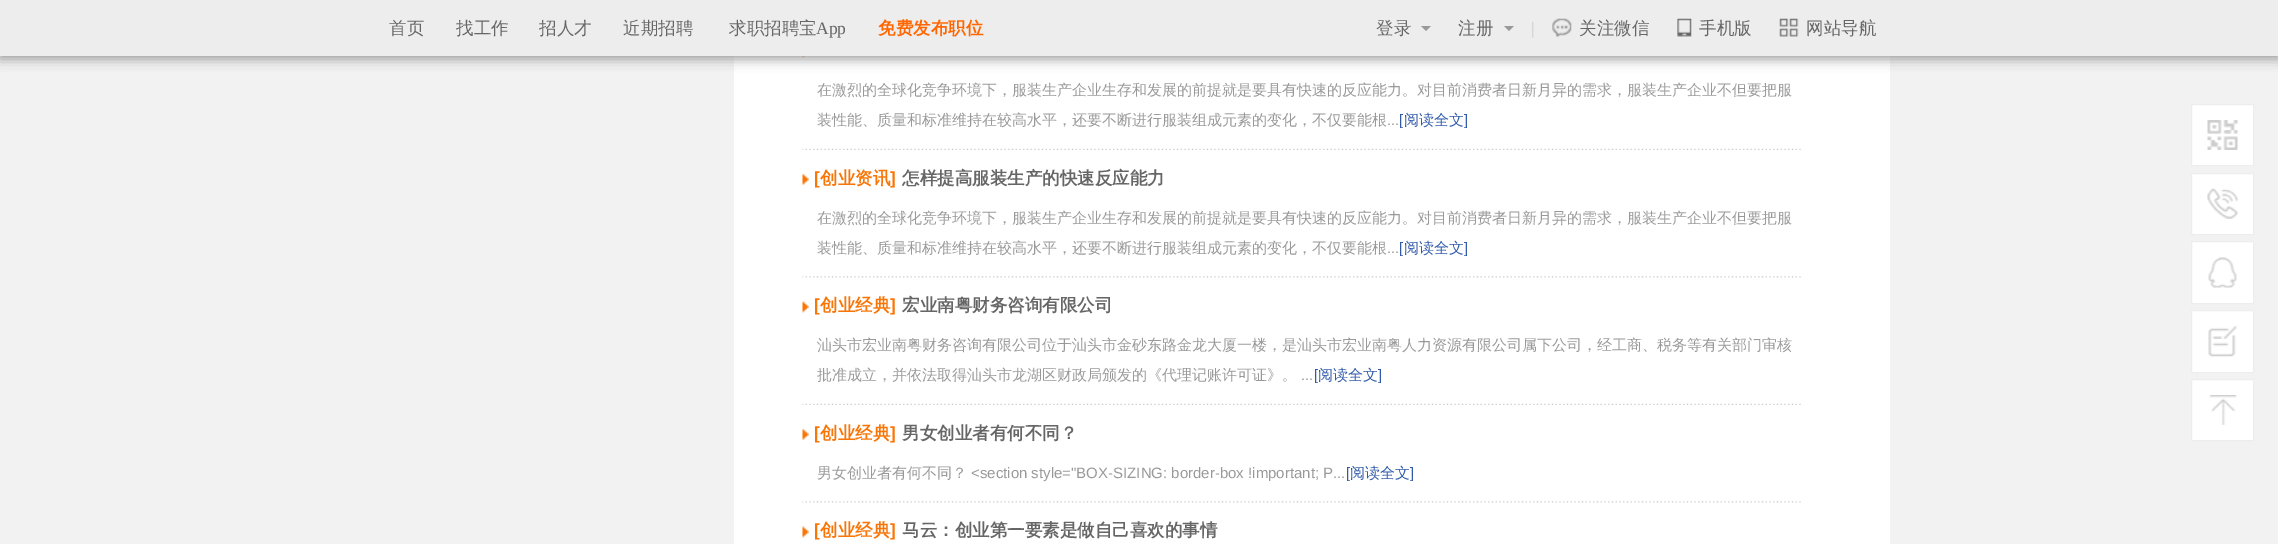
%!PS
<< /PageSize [2278 544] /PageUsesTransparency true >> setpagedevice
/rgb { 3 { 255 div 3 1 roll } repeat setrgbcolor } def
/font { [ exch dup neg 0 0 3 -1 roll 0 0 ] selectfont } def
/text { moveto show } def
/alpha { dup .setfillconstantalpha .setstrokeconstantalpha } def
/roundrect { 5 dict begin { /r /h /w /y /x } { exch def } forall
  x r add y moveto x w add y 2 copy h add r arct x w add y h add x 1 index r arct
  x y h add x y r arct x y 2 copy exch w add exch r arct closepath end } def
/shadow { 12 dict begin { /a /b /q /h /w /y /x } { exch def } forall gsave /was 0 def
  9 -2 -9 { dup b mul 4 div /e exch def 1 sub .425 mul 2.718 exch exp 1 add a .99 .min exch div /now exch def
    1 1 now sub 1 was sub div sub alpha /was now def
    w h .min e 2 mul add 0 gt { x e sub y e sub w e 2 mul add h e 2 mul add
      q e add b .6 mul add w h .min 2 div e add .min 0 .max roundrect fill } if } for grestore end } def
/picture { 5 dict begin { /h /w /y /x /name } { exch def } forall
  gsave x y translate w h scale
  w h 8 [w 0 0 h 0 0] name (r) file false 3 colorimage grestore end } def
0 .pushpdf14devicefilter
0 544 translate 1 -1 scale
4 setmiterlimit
242 242 242 rgb
0 0 2278 544 rectfill
255 255 255 rgb
734 56 1156 488 rectfill
(img_05.rgb) 802 56 4 2 picture
153 153 153 rgb
0 3 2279 56 0 6 1 shadow
237 237 237 rgb
0 0 2278 56 rectfill
153 153 153 rgb
1421 26 moveto 10 0 rlineto -5 5 rlineto closepath fill
1504 26 moveto 10 0 rlineto -5 5 rlineto closepath fill
(img_01.rgb) 1552 18 20 19 picture
(img_02.rgb) 1677 18 15 19 picture
(img_03.rgb) 1779 18 20 19 picture
(img_04.rgb) 802 148 999 2 picture
(img_06.rgb) 802 276 999 2 picture
(img_07.rgb) 802 173 7 12 picture
(img_04.rgb) 802 403 999 2 picture
(img_08.rgb) 802 301 7 12 picture
(img_06.rgb) 802 501 999 2 picture
(img_07.rgb) 802 428 7 12 picture
(img_08.rgb) 802 526 7 12 picture
255 255 255 rgb
2191.5 104.5 moveto 62 0 rlineto 0 61 rlineto -62 0 rlineto closepath gsave fill grestore
237 237 237 rgb
stroke
(img_09.rgb) 2207 120 31 30 picture
255 255 255 rgb
2191.5 173.5 moveto 62 0 rlineto 0 61 rlineto -62 0 rlineto closepath gsave fill grestore
237 237 237 rgb
stroke
(img_10.rgb) 2207 188 31 31 picture
255 255 255 rgb
2191.5 241.5 moveto 62 0 rlineto 0 62 rlineto -62 0 rlineto closepath gsave fill grestore
237 237 237 rgb
stroke
(img_11.rgb) 2208 257 29 31 picture
255 255 255 rgb
2191.5 310.5 moveto 62 0 rlineto 0 62 rlineto -62 0 rlineto closepath gsave fill grestore
237 237 237 rgb
stroke
(img_12.rgb) 2208 326 29 31 picture
255 255 255 rgb
2191.5 379.5 moveto 62 0 rlineto 0 61 rlineto -62 0 rlineto closepath gsave fill grestore
237 237 237 rgb
stroke
(img_13.rgb) 2209 395 28 30 picture
/WenQuanYiZenHei-Medium 17.5 font
102 102 102 rgb
(首页) 389 34 text
(找工作) 456 34 text
(招人才) 539 34 text
(近期招聘) 623 34 text
(求职招聘宝) 729 34 text
/LiberationSerif-Regular 17.5 font
(App) 816 34 text
/WenQuanYiZenHei-Bold 17.5 font
255 102 0 rgb
(免费发布职位) 878 34 text
/WenQuanYiZenHei-Medium 17.5 font
102 102 102 rgb
(登录) 1376 34 text
(注册) 1458 34 text
/LiberationSerif-Regular 17.5 font
205 205 205 rgb
(|) 1531 34 text
/WenQuanYiZenHei-Medium 17.5 font
102 102 102 rgb
(关注微信) 1579 34 text
(手机版) 1699 34 text
(网站导航) 1806 34 text
/WenQuanYiZenHei-Medium 15 font
153 153 153 rgb
(在激烈的全球化竞争环境下，服装生产企业生存和发展的前提就是要具有快速的反应能力。对目前消费者日新月异的需求，服装生产企业不但要把服) 817 95 text
(装性能、质量和标准维持在较高水平，还要不断进行服装组成元素的变化，不仅要能根) 817 125 text
/LiberationSans-Regular 15 font
(...) 1387 125 text
49 90 170 rgb
([) 1399 125 text
/WenQuanYiZenHei-Medium 15 font
(阅读全文) 1404 125 text
/LiberationSans-Regular 15 font
(]) 1464 125 text
/LiberationSans-Bold 17.5 font
249 117 6 rgb
([) 814 184 text
/WenQuanYiZenHei-Bold 17.5 font
(创业资讯) 820 184 text
/LiberationSans-Bold 17.5 font
(]) 890 184 text
/WenQuanYiZenHei-Bold 17.5 font
102 102 102 rgb
(怎样提高服装生产的快速反应能力) 902 184 text
/WenQuanYiZenHei-Medium 15 font
153 153 153 rgb
(在激烈的全球化竞争环境下，服装生产企业生存和发展的前提就是要具有快速的反应能力。对目前消费者日新月异的需求，服装生产企业不但要把服) 817 223 text
(装性能、质量和标准维持在较高水平，还要不断进行服装组成元素的变化，不仅要能根) 817 253 text
/LiberationSans-Regular 15 font
(...) 1387 253 text
49 90 170 rgb
([) 1399 253 text
/WenQuanYiZenHei-Medium 15 font
(阅读全文) 1404 253 text
/LiberationSans-Regular 15 font
(]) 1464 253 text
/LiberationSans-Bold 17.5 font
249 117 6 rgb
([) 814 311 text
/WenQuanYiZenHei-Bold 17.5 font
(创业经典) 820 311 text
/LiberationSans-Bold 17.5 font
(]) 890 311 text
/WenQuanYiZenHei-Bold 17.5 font
102 102 102 rgb
(宏业南粤财务咨询有限公司) 902 311 text
/WenQuanYiZenHei-Medium 15 font
153 153 153 rgb
(汕头市宏业南粤财务咨询有限公司位于汕头市金砂东路金龙大厦一楼，是汕头市宏业南粤人力资源有限公司属下公司，经工商、税务等有关部门审核) 817 350 text
(批准成立，并依法取得汕头市龙湖区财政局颁发的《代理记账许可证》。) 817 380 text
/LiberationSans-Regular 15 font
(...) 1301 380 text
49 90 170 rgb
([) 1314 380 text
/WenQuanYiZenHei-Medium 15 font
(阅读全文) 1318 380 text
/LiberationSans-Regular 15 font
(]) 1378 380 text
/LiberationSans-Bold 17.5 font
249 117 6 rgb
([) 814 439 text
/WenQuanYiZenHei-Bold 17.5 font
(创业经典) 820 439 text
/LiberationSans-Bold 17.5 font
(]) 890 439 text
/WenQuanYiZenHei-Bold 17.5 font
102 102 102 rgb
(男女创业者有何不同？) 902 439 text
/WenQuanYiZenHei-Medium 15 font
153 153 153 rgb
(男女创业者有何不同？) 817 478 text
/LiberationSans-Regular 15 font
(<section style="BOX-SIZING: border-box !important; P...) 971 478 text
49 90 170 rgb
([) 1346 478 text
/WenQuanYiZenHei-Medium 15 font
(阅读全文) 1350 478 text
/LiberationSans-Regular 15 font
(]) 1410 478 text
/LiberationSans-Bold 17.5 font
249 117 6 rgb
([) 814 536 text
/WenQuanYiZenHei-Bold 17.5 font
(创业经典) 820 536 text
/LiberationSans-Bold 17.5 font
(]) 890 536 text
/WenQuanYiZenHei-Bold 17.5 font
102 102 102 rgb
(马云：创业第一要素是做自己喜欢的事情) 902 536 text
.poppdf14devicefilter showpage
